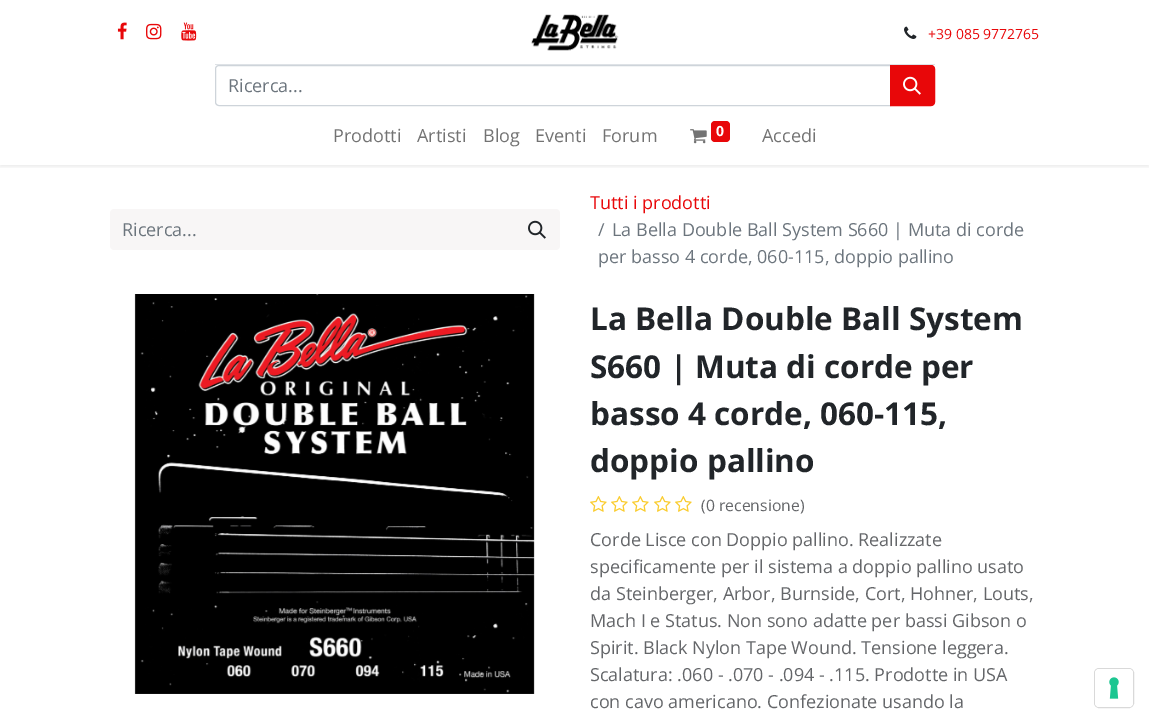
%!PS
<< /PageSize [1149 723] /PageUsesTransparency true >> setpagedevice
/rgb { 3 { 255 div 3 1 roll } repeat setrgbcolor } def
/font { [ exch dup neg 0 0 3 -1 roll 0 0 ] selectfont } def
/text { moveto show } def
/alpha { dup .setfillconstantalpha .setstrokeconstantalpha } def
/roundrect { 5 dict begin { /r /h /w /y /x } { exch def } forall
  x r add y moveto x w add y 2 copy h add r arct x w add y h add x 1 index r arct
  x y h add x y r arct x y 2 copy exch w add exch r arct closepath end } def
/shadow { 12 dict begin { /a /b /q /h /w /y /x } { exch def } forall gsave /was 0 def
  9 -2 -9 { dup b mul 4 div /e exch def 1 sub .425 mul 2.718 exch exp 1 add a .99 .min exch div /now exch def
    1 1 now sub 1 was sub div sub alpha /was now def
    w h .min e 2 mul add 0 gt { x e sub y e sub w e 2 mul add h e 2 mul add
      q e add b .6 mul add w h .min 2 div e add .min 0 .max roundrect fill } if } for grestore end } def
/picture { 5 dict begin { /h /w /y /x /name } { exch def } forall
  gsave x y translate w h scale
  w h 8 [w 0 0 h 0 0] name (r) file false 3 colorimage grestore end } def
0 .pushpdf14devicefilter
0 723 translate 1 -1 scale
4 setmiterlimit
255 255 255 rgb
0 0 1149 723 rectfill
gsave
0 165 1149 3 rectclip
0 0 0 rgb
0 2 1149 165 0 2 0.07 shadow
grestore
(img_01.rgb) 117 22 10 18 picture
(img_02.rgb) 146 23 16 17 picture
(img_03.rgb) 181 22 16 19 picture
(img_04.rgb) 531 14 88 37 picture
(img_05.rgb) 904 26 13 13 picture
222 226 230 rgb
215 64 720 1 rectfill
206 212 218 rgb
219 65.5 moveto 671.5 0 rlineto 0 40 rlineto -671.5 0 rlineto -2 0 -3.5 -1.5 -3.5 -3.5 rcurveto 0 -33 rlineto 0 -2 1.5 -3.5 3.5 -3.5 rcurveto closepath stroke
232 7 9 rgb
890.5 65.5 moveto 40.5 0 rlineto 2 0 3.5 1.5 3.5 3.5 rcurveto 0 33 rlineto 0 2 -1.5 3.5 -3.5 3.5 rcurveto -40.5 0 rlineto closepath gsave fill grestore
stroke
(img_06.rgb) 903 76 18 19 picture
(img_07.rgb) 690 129 17 15 picture
711 121 19 21 4 roundrect fill
248 246 246 rgb
114 209 moveto 402 0 rlineto 0 41 rlineto -402 0 rlineto -2 0 -4 -2 -4 -4 rcurveto 0 -33 rlineto 0 -2 2 -4 4 -4 rcurveto closepath fill
515 209 moveto 41 0 rlineto 2 0 4 2 4 4 rcurveto 0 33 rlineto 0 2 -2 4 -4 4 rcurveto -41 0 rlineto closepath fill
(img_08.rgb) 528 220 18 19 picture
(img_09.rgb) 134 294 401 400 picture
(img_10.rgb) 590 495 17 17 picture
(img_10.rgb) 611 495 17 17 picture
(img_10.rgb) 632 495 17 17 picture
(img_10.rgb) 654 495 17 17 picture
(img_10.rgb) 675 495 17 17 picture
217 217 217 rgb
1094.5 668.5 39 39 4.5 roundrect stroke
255 255 255 rgb
1095 669 38 38 4 roundrect fill
(img_11.rgb) 1109 677 10 22 picture
/OpenSans-Regular 14 font
232 7 9 rgb
(+39 085 9772765) 928 39 text
/OpenSans-Regular 18 font
108 117 125 rgb
(Ricerca...) 228 92 text
115 115 115 rgb
(Prodotti) 333 142 text
(Artisti) 417 142 text
(Blog) 483 142 text
(Eventi) 535 142 text
(Forum) 602 142 text
/OpenSans-Bold 14 font
255 255 255 rgb
(0) 716 136 text
/OpenSans-Regular 18 font
115 115 115 rgb
(Accedi) 762 142 text
108 117 125 rgb
(Ricerca...) 122 236 text
232 7 9 rgb
(Tutti i prodotti) 590 209 text
108 117 125 rgb
(/) 598 236 text
(La Bella Double Ball System S660 | Muta di corde) 612 236 text
(per basso 4 corde, 060-115, doppio pallino) 598 263 text
/OpenSans-Bold 31.5 font
33 37 41 rgb
(La Bella Double Ball System) 590 330 text
(S660 | Muta di corde per) 590 378 text
(basso 4 corde, 060-115,) 590 425 text
(doppio pallino) 590 472 text
/OpenSans-Regular 15.75 font
100 102 105 rgb
(\(0 recensione\)) 701 511 text
/OpenSans-Regular 18 font
(Corde Lisce con Doppio pallino. Realizzate) 590 546 text
(specificamente per il sistema a doppio pallino usato) 590 573 text
(da Steinberger, Arbor, Burnside, Cort, Hohner, Louts,) 590 600 text
(Mach I e Status. Non sono adatte per bassi Gibson o) 590 627 text
(Spirit. Black Nylon Tape Wound. Tensione leggera.) 590 654 text
(Scalatura: .060 - .070 - .094 - .115. Prodotte in USA) 590 681 text
(con cavo americano. Confezionate usando la) 590 708 text
.poppdf14devicefilter showpage
